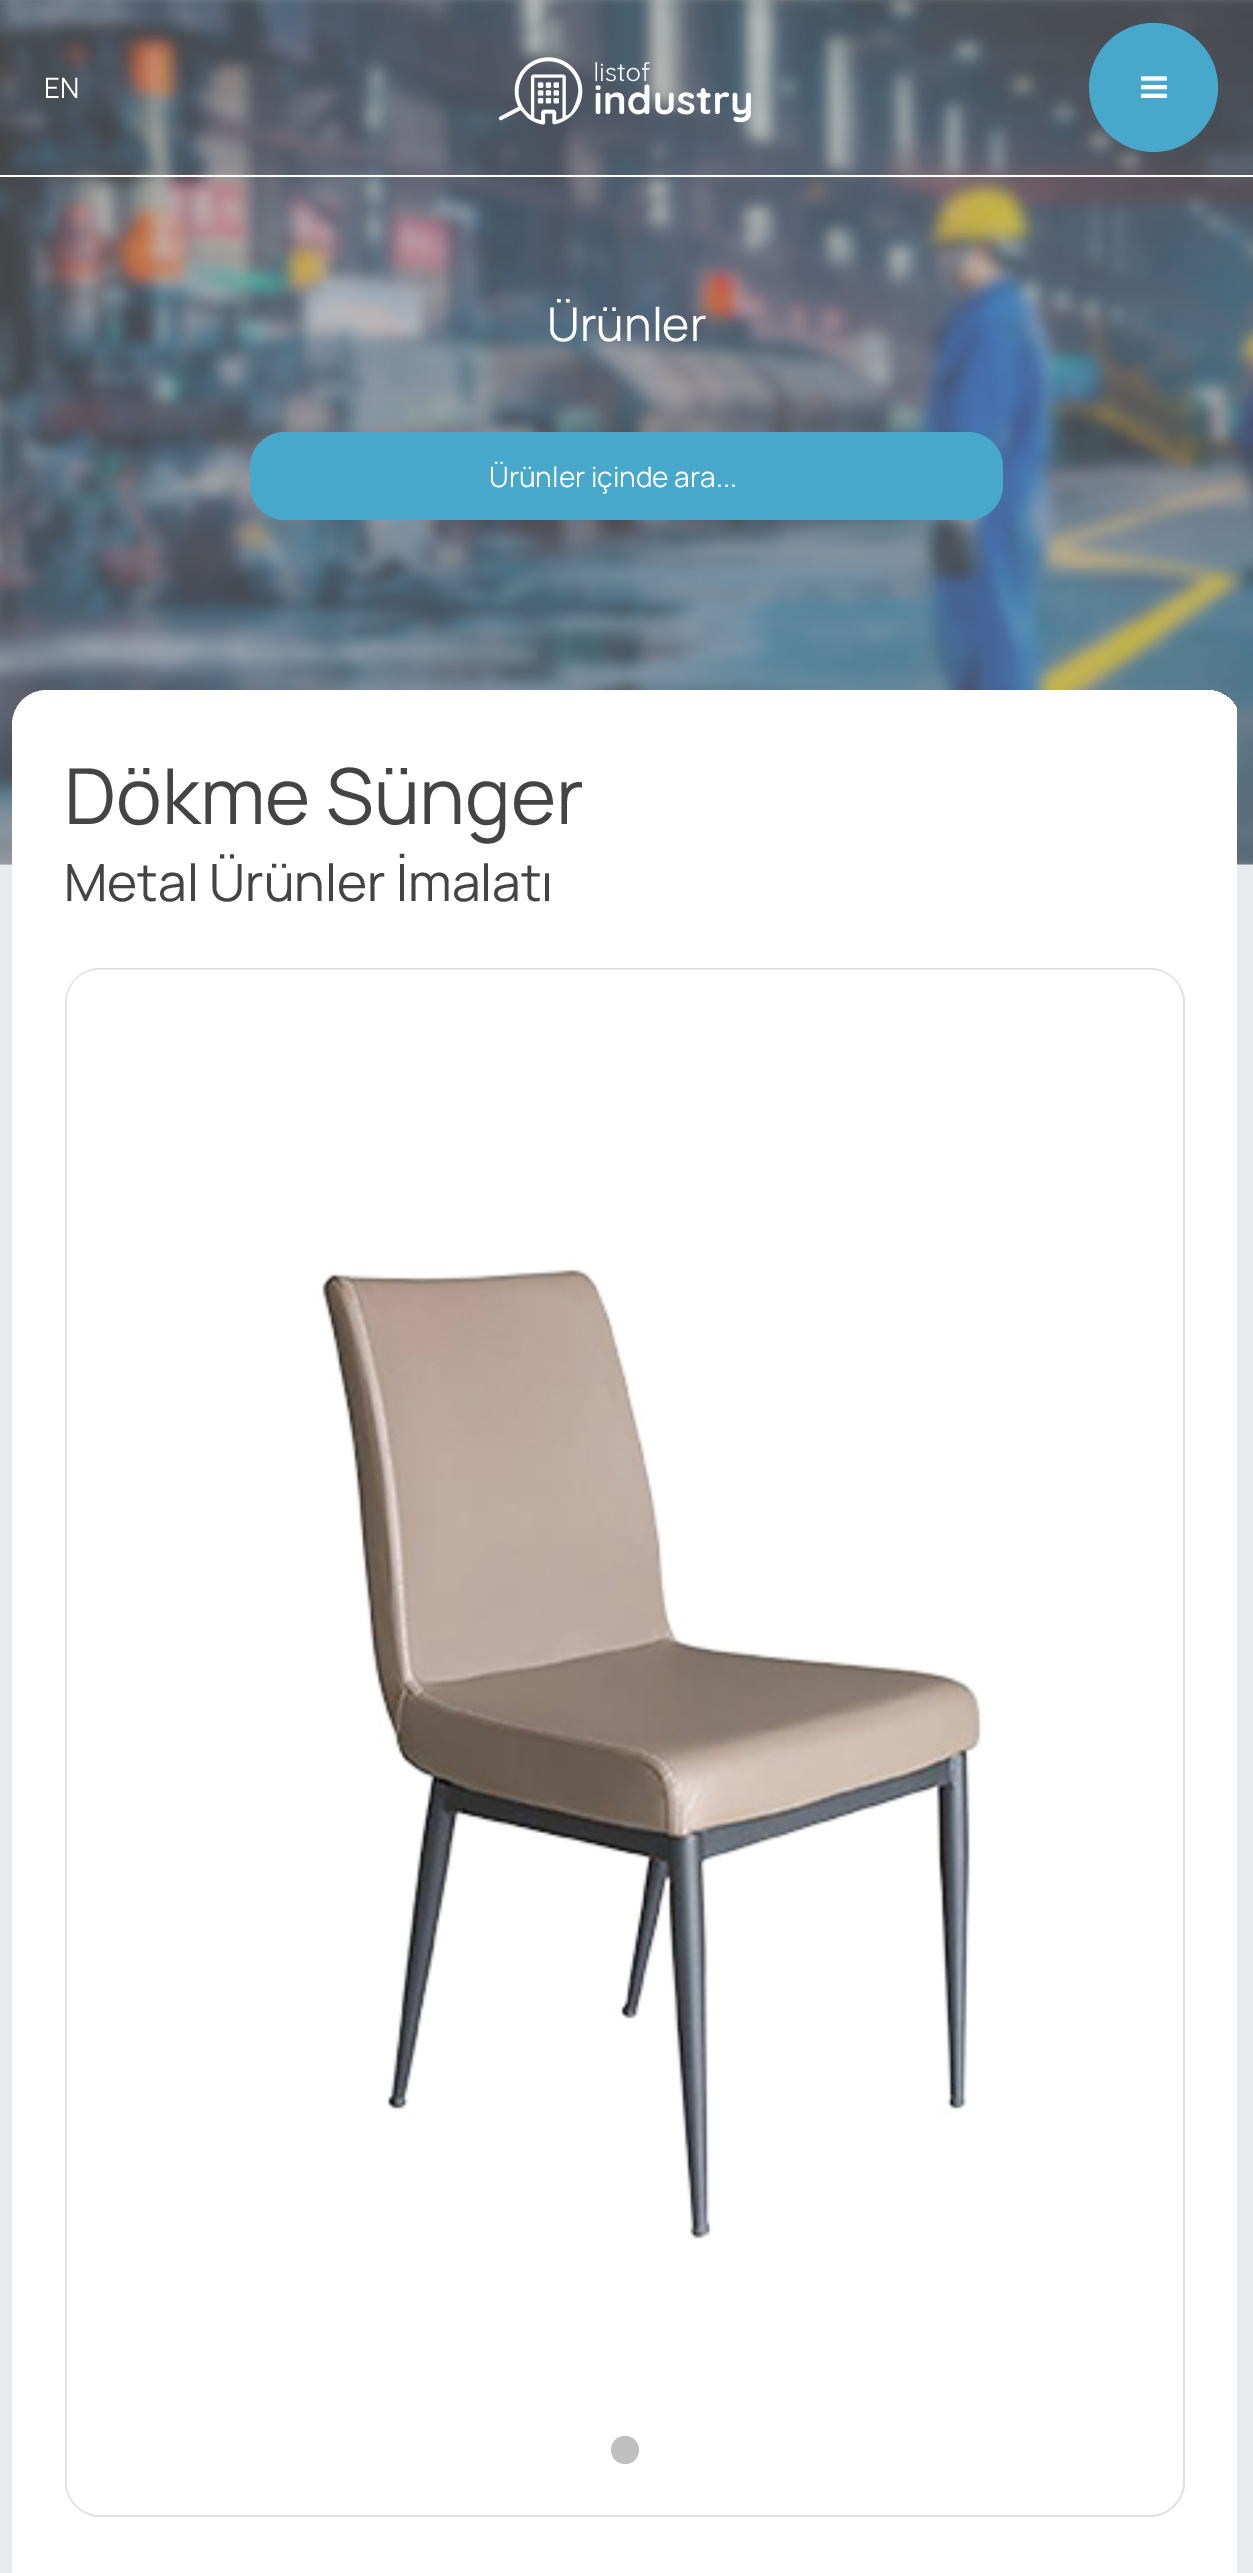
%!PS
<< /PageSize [1253 2573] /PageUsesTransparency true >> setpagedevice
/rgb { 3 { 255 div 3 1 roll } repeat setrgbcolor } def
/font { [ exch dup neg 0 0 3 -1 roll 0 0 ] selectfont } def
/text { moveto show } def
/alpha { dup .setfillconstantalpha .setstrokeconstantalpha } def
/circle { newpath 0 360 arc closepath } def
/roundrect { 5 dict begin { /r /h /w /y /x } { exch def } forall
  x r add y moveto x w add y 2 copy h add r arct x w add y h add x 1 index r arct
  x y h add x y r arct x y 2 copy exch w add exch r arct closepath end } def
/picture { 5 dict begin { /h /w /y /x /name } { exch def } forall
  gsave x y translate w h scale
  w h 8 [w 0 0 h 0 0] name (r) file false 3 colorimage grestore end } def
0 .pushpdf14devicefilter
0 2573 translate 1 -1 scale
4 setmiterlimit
231 235 238 rgb
0 0 1253 2573 rectfill
(img_03.rgb) 0 0 1253 865 picture
255 255 255 rgb
0 175 1253 2 rectfill
71 168 204 rgb
1153.5 87.5 64.5 circle fill
(img_01.rgb) 1141 76 26 22 picture
(img_02.rgb) 498 57 253 68 picture
250 432 753 88 35 roundrect fill
gsave
12 690 1229 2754 35 roundrect clip newpath
255 255 255 rgb
47 690 moveto 1181 0 rlineto 5 0 9 4 9 9 rcurveto 0 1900 rlineto 0 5 -4 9 -9 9 rcurveto -1207 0 rlineto -5 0 -9 -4 -9 -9 rcurveto 0 -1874 rlineto 0 -19.5 15.5 -35 35 -35 rcurveto closepath fill
grestore
224 224 224 rgb
100 968 moveto -19 0 -35 16 -35 35 rcurveto 0 1479 rlineto 0 19 16 35 35 35 rcurveto 1050 0 rlineto 19 0 35 -16 35 -35 rcurveto 0 -1479 rlineto 0 -19 -16 -35 -35 -35 rcurveto closepath fill
245 245 245 rgb
67 970 1116 1545 33 roundrect fill
(img_04.rgb) 66 969 1117 1546 picture
213 213 213 rgb
625 2450 14 circle fill
0.1 alpha
0 0 0 rgb
625 2436 moveto -18.5 0 -18.5 28 0 28 rcurveto 18.5 0 18.5 -28 0 -28 rcurveto closepath fill
/Manrope-Regular 28 font
1 alpha
255 255 255 rgb
(EN) 44 98 text
/Manrope-Regular 46.5 font
(Ürünler) 547 341 text
/Manrope-Regular 28 font
(Ürünler içinde ara...) 489 487 text
/Manrope-Regular 77.25 font
68 68 68 rgb
(Dökme Sünger) 64 824 text
/Manrope-Regular 51.5 font
(Metal Ürünler İmalatı) 64 901 text
.poppdf14devicefilter showpage
